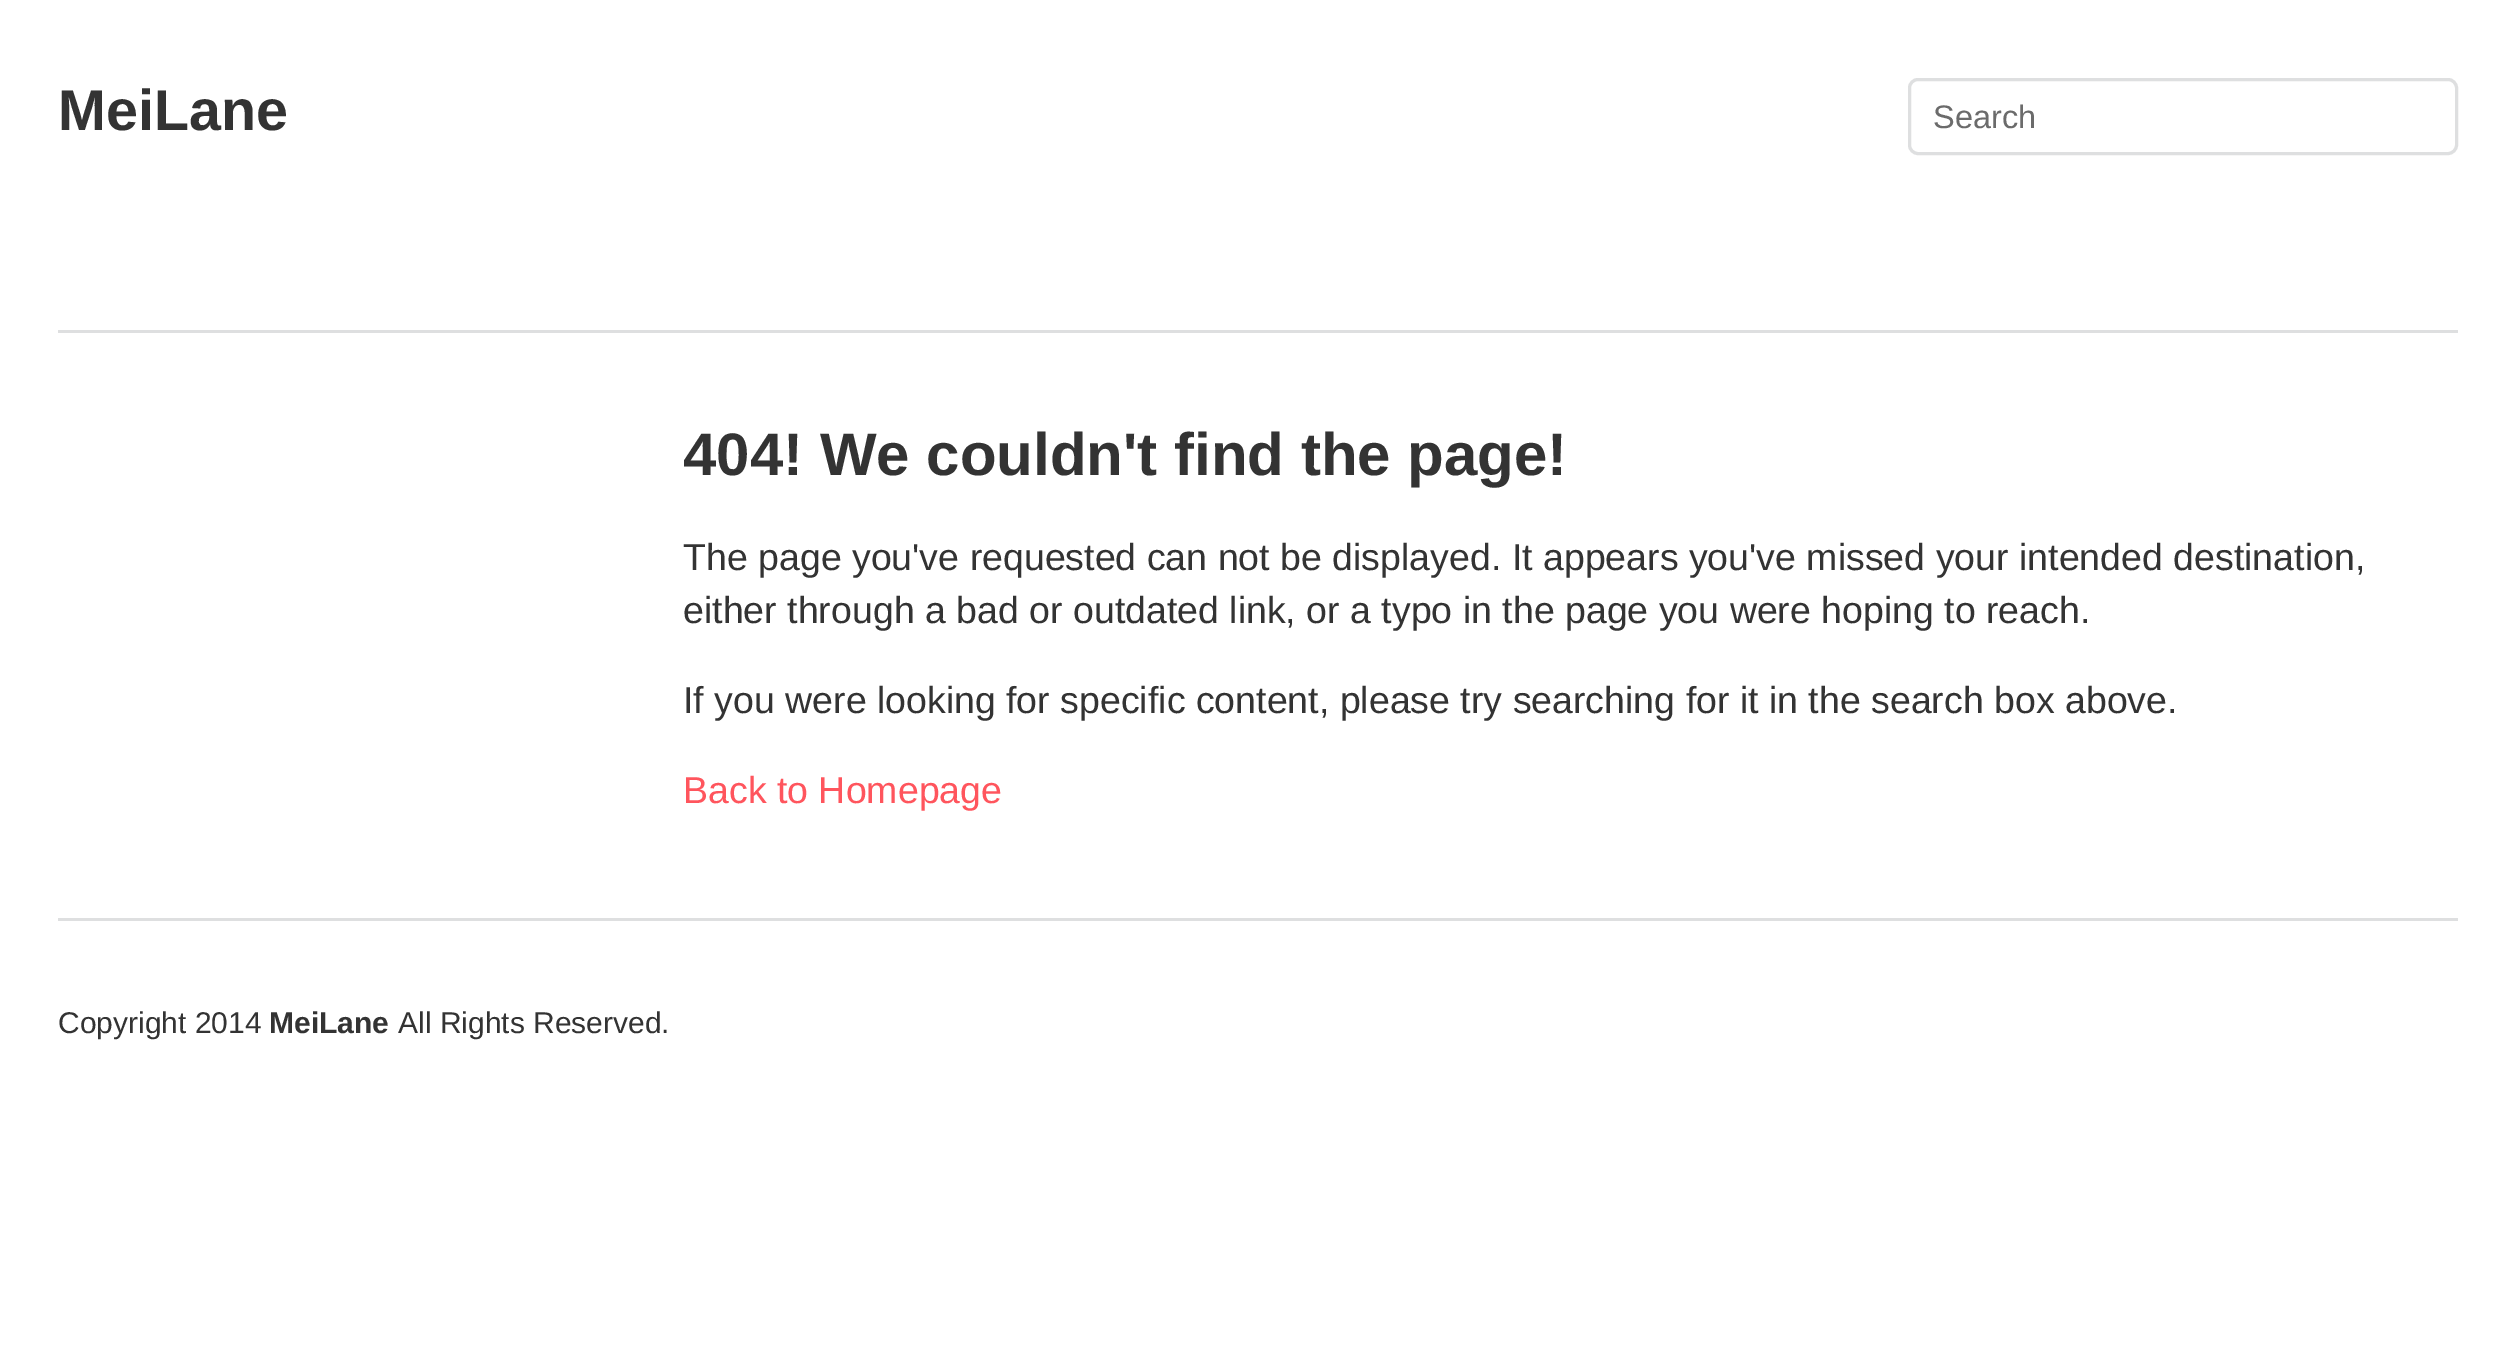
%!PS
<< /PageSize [2515 1358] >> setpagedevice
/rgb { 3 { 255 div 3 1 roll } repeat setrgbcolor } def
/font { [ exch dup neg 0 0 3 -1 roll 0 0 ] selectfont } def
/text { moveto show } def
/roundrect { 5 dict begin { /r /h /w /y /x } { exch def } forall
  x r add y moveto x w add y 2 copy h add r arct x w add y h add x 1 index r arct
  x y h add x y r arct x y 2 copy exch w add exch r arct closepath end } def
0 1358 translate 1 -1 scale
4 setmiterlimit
255 255 255 rgb
0 0 2515 1358 rectfill
222 223 224 rgb
58 330 2400 3 rectfill
3 setlinewidth
1909.5 79.5 547 74 8.5 roundrect stroke
58 918 2400 3 rectfill
/LiberationSans-Bold 57.5 font
51 51 51 rgb
(MeiLane) 58 130 text
/LiberationSans-Regular 32.5 font
107 107 107 rgb
(Search) 1933 128 text
/LiberationSans-Bold 60 font
51 51 51 rgb
(404! We couldn't find the page!) 683 475 text
/LiberationSans-Regular 37.5 font
(The page you've requested can not be displayed. It appears you've missed your intended destination,) 683 570 text
(either through a bad or outdated link, or a typo in the page you were hoping to reach.) 683 623 text
(If you were looking for specific content, please try searching for it in the search box above.) 683 713 text
255 85 93 rgb
(Back to Homepage) 683 803 text
/LiberationSans-Regular 30 font
51 51 51 rgb
(Copyright 2014) 58 1033 text
/LiberationSans-Bold 30 font
(MeiLane) 269 1033 text
/LiberationSans-Regular 30 font
(All Rights Reserved.) 398 1033 text
showpage
